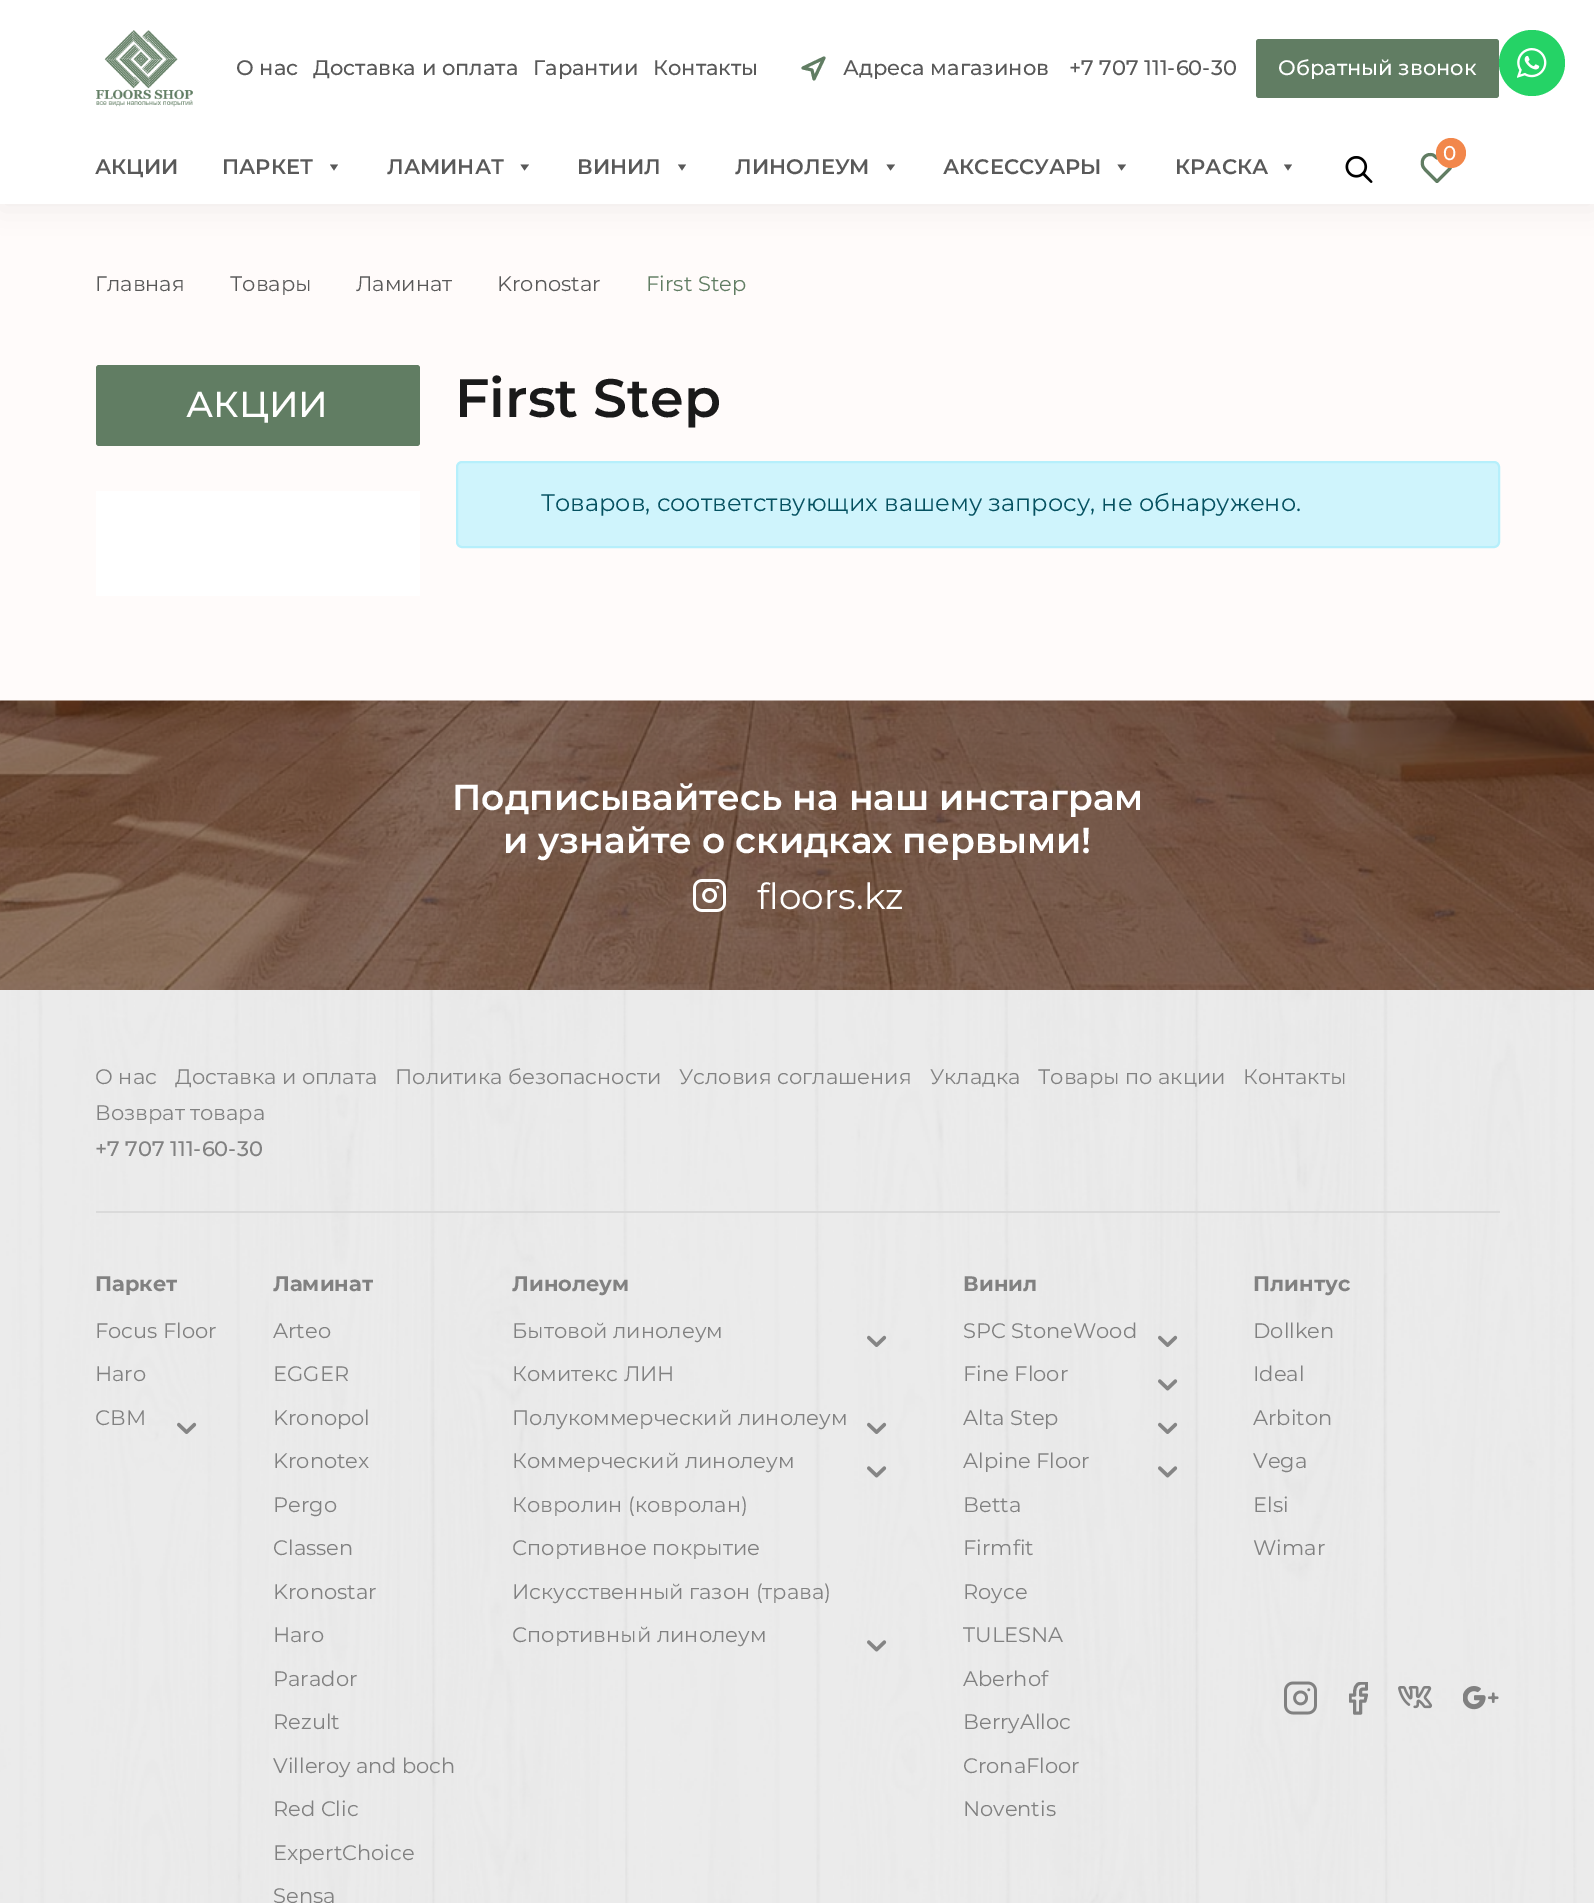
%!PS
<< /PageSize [1594 1903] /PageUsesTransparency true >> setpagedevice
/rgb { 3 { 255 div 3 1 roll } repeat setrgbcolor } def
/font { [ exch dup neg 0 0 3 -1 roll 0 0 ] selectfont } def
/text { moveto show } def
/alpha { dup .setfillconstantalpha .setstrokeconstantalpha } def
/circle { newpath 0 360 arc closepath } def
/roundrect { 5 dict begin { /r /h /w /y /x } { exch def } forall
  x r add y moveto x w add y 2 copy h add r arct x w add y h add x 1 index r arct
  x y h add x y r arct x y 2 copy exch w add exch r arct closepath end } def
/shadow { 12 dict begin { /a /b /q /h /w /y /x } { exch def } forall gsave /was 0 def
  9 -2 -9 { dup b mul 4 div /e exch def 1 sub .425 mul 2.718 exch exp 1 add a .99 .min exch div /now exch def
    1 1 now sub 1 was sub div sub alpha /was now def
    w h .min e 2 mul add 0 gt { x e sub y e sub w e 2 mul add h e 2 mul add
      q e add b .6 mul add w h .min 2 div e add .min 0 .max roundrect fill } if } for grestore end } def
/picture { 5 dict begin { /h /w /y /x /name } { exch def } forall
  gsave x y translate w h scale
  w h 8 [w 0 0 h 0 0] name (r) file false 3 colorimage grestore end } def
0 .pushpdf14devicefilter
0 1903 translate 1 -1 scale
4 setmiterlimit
255 251 250 rgb
0 0 1594 1903 rectfill
0 0 0 rgb
0 143 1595 67 0 15 0.05 shadow
255 255 255 rgb
0 0 1594 204 rectfill
(img_01.rgb) 96 30 97 77 picture
97 125 99 rgb
3 setlinewidth
1 setlinecap
1 setlinejoin
803 68 moveto 21 -10 rlineto -10 21 rlineto -2 -9 rlineto closepath stroke
1256 39 243 59 3 roundrect fill
1449.5 157 moveto -4 -4 -9 -2.5 -12.5 1 rcurveto -1.5 -1 -2.5 -2.5 -4 -3 rcurveto -7 -2.5 -13 4.5 -10 11.5 rcurveto 1 2.5 4 5 6 7 rcurveto 8 8 rlineto 12 -12 rlineto 4 -4 4 -9.5 0.5 -12.5 rcurveto closepath stroke
242 135 75 rgb
1451 153 15 circle fill
89 89 89 rgb
338 164.5 moveto -4 6 rlineto -4 -6 rlineto closepath fill
529 164.5 moveto -4.5 6 rlineto -4 -6 rlineto closepath fill
686 164.5 moveto -4 6 rlineto -4 -6 rlineto closepath fill
895 164.5 moveto -4.5 6 rlineto -4 -6 rlineto closepath fill
1126 164.5 moveto -4.5 6 rlineto -4 -6 rlineto closepath fill
1292 164.5 moveto -4 6 rlineto -4 -6 rlineto closepath fill
(img_02.rgb) 1345 156 28 27 picture
97 125 99 rgb
96 365 324 81 3 roundrect fill
255 255 255 rgb
96 491 324 105 rectfill
207 244 252 rgb
457 462 1042 85 5 roundrect gsave fill grestore
182 239 251 rgb
2 setlinewidth
0 setlinecap
0 setlinejoin
stroke
(img_03.rgb) 0 700 1594 290 picture
(img_04.rgb) 693 879 33 33 picture
(img_05.rgb) 0 990 1594 913 picture
218 218 218 rgb
96 1211 1404 2 rectfill
(img_06.rgb) 177 1422 20 12 picture
(img_07.rgb) 867 1335 20 12 picture
(img_08.rgb) 867 1422 20 12 picture
(img_09.rgb) 867 1466 20 12 picture
(img_10.rgb) 867 1640 20 12 picture
(img_11.rgb) 1158 1335 20 12 picture
(img_12.rgb) 1158 1379 20 12 picture
(img_13.rgb) 1158 1422 20 12 picture
(img_14.rgb) 1158 1466 20 12 picture
(img_15.rgb) 1284 1681 33 34 picture
gsave
1349 1682 19 33 rectclip
129 129 129 rgb
3 setlinewidth
1 setlinecap
1 setlinejoin
1366.5 1683 moveto -5 0 rlineto -7 0.5 -7 7 -7 12 rcurveto -4.5 0 rlineto 0 6 rlineto 4.5 0 rlineto 0 12 rlineto 6 0 rlineto 0 -12 rlineto 4.5 0 rlineto 1.5 -6 rlineto -6 0 rlineto 0 -6.5 -0.5 -6 6 -6 rcurveto closepath stroke
grestore
(img_16.rgb) 1398 1686 35 23 picture
(img_17.rgb) 1463 1686 36 24 picture
37 211 102 rgb
1532 63 33 circle fill
(img_18.rgb) 1517 48 30 30 picture
/Montserrat-Medium 21 font
89 89 89 rgb
(О нас) 236 75 text
(Доставка и оплата) 313 75 text
(Гарантии) 533 75 text
(Контакты) 653 75 text
(Адреса магазинов) 843 75 text
(+7 707 111-60-30) 1069 75 text
255 255 255 rgb
(Обратный звонок) 1278 75 text
/Montserrat-Medium 20 font
(0) 1443 160 text
/Montserrat-SemiBold 21 font
89 89 89 rgb
(АКЦИИ) 95 174 text
(ПАРКЕТ) 222 174 text
(ЛАМИНАТ) 387 174 text
(ВИНИЛ) 577 174 text
(ЛИНОЛЕУМ) 735 174 text
(АКСЕССУАРЫ) 943 174 text
(КРАСКА) 1175 174 text
/Montserrat-Regular 21 font
(Главная) 95 291 text
(Товары) 230 291 text
(Ламинат) 356 291 text
(Kronostar) 497 291 text
97 125 99 rgb
(First Step) 646 291 text
/Montserrat-Medium 36 font
255 255 255 rgb
(АКЦИИ) 186 417 text
/Montserrat-SemiBold 54 font
26 26 26 rgb
(First Step) 455 417 text
/Montserrat-Regular 24 font
5 81 96 rgb
(Товаров, соответствующих вашему запросу, не обнаружено.) 541 511 text
/Montserrat-SemiBold 36 font
255 255 255 rgb
(Подписывайтесь на наш инстаграм) 452 810 text
(и узнайте о скидках первыми!) 503 853 text
/Montserrat-Regular 36 font
(floors.kz) 757 909 text
/Montserrat-Regular 21 font
129 129 129 rgb
(О нас) 95 1084 text
(Доставка и оплата) 175 1084 text
(Политика безопасности) 395 1084 text
(Условия соглашения) 679 1084 text
(Укладка) 930 1084 text
(Товары по акции) 1038 1084 text
(Контакты) 1243 1084 text
(Возврат товара) 95 1120 text
/Montserrat-Medium 21 font
(+7 707 111-60-30) 95 1156 text
/Montserrat-Bold 21 font
(Паркет) 95 1291 text
/Montserrat-Regular 21 font
(Focus Floor) 95 1338 text
(Haro) 95 1381 text
(СВМ) 95 1425 text
/Montserrat-Bold 21 font
(Ламинат) 273 1291 text
/Montserrat-Regular 21 font
(Arteo) 273 1338 text
(EGGER) 273 1381 text
(Kronopol) 273 1425 text
(Kronotex) 273 1468 text
(Pergo) 273 1512 text
(Classen) 273 1555 text
(Kronostar) 273 1599 text
(Haro) 273 1642 text
(Parador) 273 1686 text
(Rezult) 273 1729 text
(Villeroy and boch) 273 1773 text
(Red Clic) 273 1816 text
(ExpertChoice) 273 1860 text
(Sensa) 273 1903 text
/Montserrat-Bold 21 font
(Линолеум) 512 1291 text
/Montserrat-Regular 21 font
(Бытовой линолеум) 512 1338 text
(Комитекс ЛИН) 512 1381 text
(Полукоммерческий линолеум) 512 1425 text
(Коммерческий линолеум) 512 1468 text
(Ковролин \(ковролан\)) 512 1512 text
(Спортивное покрытие) 512 1555 text
(Искусственный газон \(трава\)) 512 1599 text
(Спортивный линолеум) 512 1642 text
/Montserrat-Bold 21 font
(Винил) 963 1291 text
/Montserrat-Regular 21 font
(SPC StoneWood) 963 1338 text
(Fine Floor) 963 1381 text
(Alta Step) 963 1425 text
(Alpine Floor) 963 1468 text
(Betta) 963 1512 text
(Firmfit) 963 1555 text
(Royce) 963 1599 text
(TULESNA) 963 1642 text
(Aberhof) 963 1686 text
(BerryAlloc) 963 1729 text
(CronaFloor) 963 1773 text
(Noventis) 963 1816 text
/Montserrat-Bold 21 font
(Плинтус) 1253 1291 text
/Montserrat-Regular 21 font
(Dollken) 1253 1338 text
(Ideal) 1253 1381 text
(Arbiton) 1253 1425 text
(Vega) 1253 1468 text
(Elsi) 1253 1512 text
(Wimar) 1253 1555 text
.poppdf14devicefilter showpage
